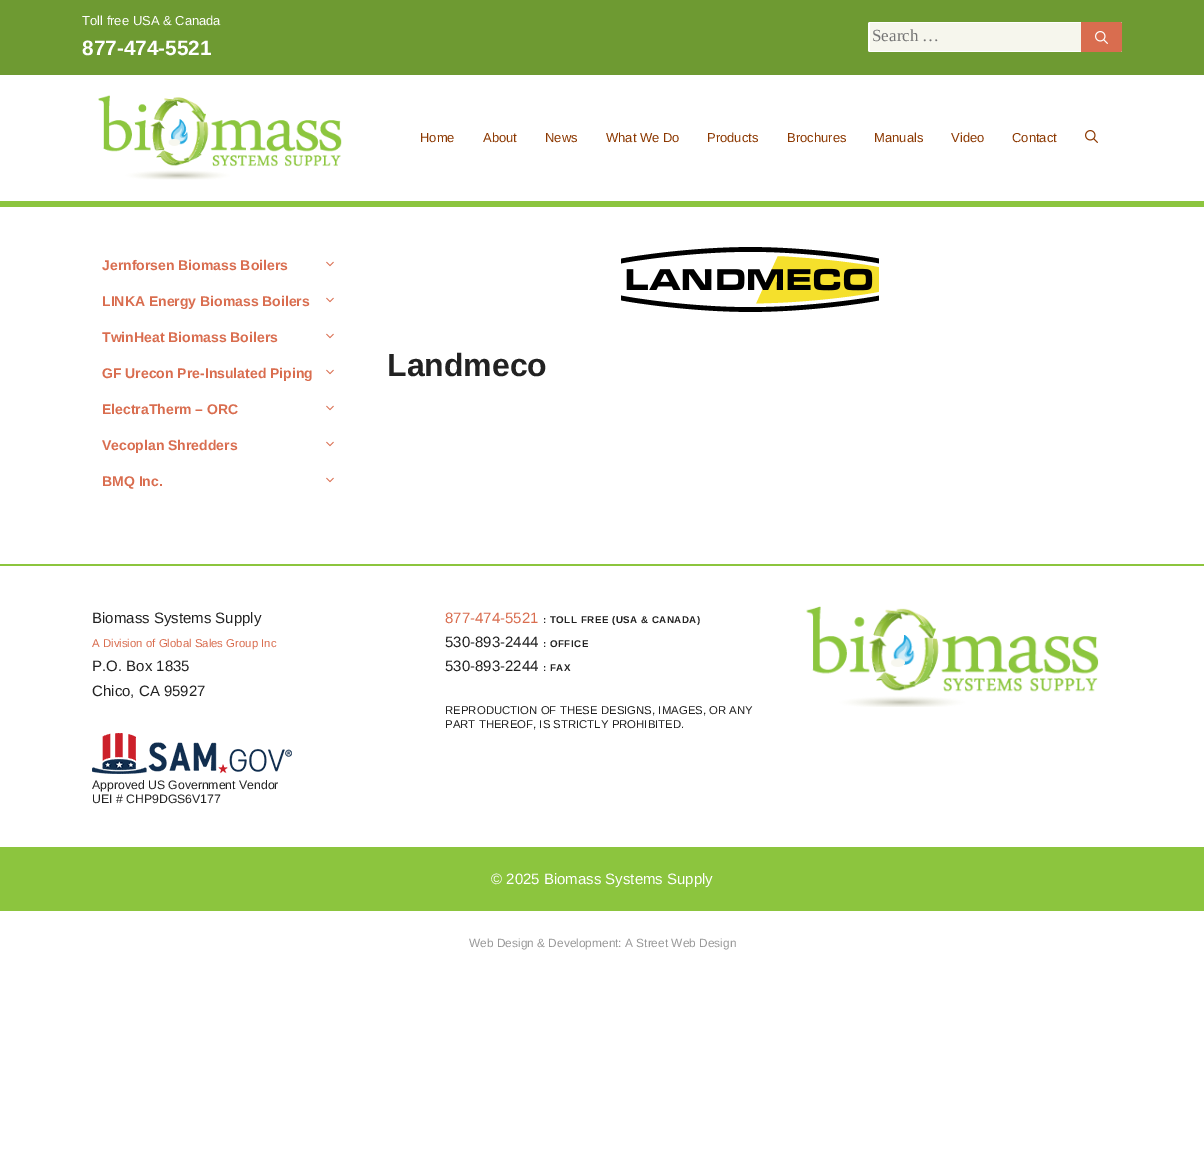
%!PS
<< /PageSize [1204 1170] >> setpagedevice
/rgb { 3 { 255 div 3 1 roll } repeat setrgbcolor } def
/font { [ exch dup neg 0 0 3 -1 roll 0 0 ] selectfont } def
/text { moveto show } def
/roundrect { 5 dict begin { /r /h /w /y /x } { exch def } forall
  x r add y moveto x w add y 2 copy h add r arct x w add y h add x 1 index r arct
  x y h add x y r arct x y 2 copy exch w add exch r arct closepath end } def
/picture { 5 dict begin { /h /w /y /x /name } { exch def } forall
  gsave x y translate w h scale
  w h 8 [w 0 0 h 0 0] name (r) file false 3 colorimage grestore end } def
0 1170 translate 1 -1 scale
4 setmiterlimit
255 255 255 rgb
0 0 1204 1170 rectfill
110 154 50 rgb
0 0 1204 75 rectfill
255 255 255 rgb
868 22 254 30 2 roundrect fill
246 246 237 rgb
870 23 211 28 rectfill
217 109 79 rgb
1081.5 22 moveto 38.5 0 rlineto 1 0 2 1 2 2 rcurveto 0 26 rlineto 0 1 -1 2 -2 2 rcurveto -38.5 0 rlineto -0.5 0 -0.5 0 -0.5 -0.5 rcurveto 0 -29 rlineto 0 -0.5 0 -0.5 0.5 -0.5 rcurveto closepath fill
(img_01.rgb) 1095 31 13 13 picture
140 197 62 rgb
0 201 1204 6 rectfill
(img_02.rgb) 98 95 244 85 picture
(img_03.rgb) 1085 130 13 13 picture
(img_04.rgb) 326 261 8 6 picture
(img_04.rgb) 326 297 8 6 picture
(img_04.rgb) 326 333 8 6 picture
(img_04.rgb) 326 369 8 6 picture
(img_04.rgb) 326 405 8 6 picture
(img_04.rgb) 326 441 8 6 picture
(img_04.rgb) 326 477 8 6 picture
(img_05.rgb) 621 247 258 65 picture
0 564 1204 2 rectfill
(img_06.rgb) 92 733 200 41 picture
(img_07.rgb) 806 606 293 101 picture
0 847 1204 64 rectfill
/LiberationSans-Regular 13 font
255 255 255 rgb
(Toll free USA & Canada) 82 25 text
/LiberationSans-Bold 20.75 font
(877-474-5521) 82 55 text
/LiberationSerif-Regular 17 font
117 117 117 rgb
(Search …) 872 41 text
/LiberationSans-Regular 13 font
140 56 1 rgb
(Home) 420 142 text
(About) 483 142 text
(News) 545 142 text
(What We Do) 606 142 text
(Products) 707 142 text
(Brochures) 787 142 text
(Manuals) 874 142 text
(Video) 951 142 text
(Contact) 1012 142 text
/LiberationSans-Bold 14 font
217 109 79 rgb
(Jernforsen Biomass Boilers) 102 270 text
(LINKA Energy Biomass Boilers) 102 306 text
(TwinHeat Biomass Boilers) 102 342 text
(GF Urecon Pre-Insulated Piping) 102 378 text
(ElectraTherm – ORC) 102 414 text
(Vecoplan Shredders) 102 450 text
(BMQ Inc.) 102 486 text
/LiberationSans-Bold 32 font
34 34 34 rgb
(Landmeco) 387 376 text
/LiberationSans-Regular 15 font
(Biomass Systems Supply) 92 623 text
/LiberationSans-Regular 11.4 font
217 109 79 rgb
(A Division of Global Sales Group Inc) 92 647 text
/LiberationSans-Regular 15 font
34 34 34 rgb
(P.O. Box 1835) 92 671 text
(Chico, CA 95927) 92 696 text
/LiberationSans-Regular 12.25 font
(Approved US Government Vendor) 92 789 text
(UEI # CHP9DGS6V177) 92 803 text
/LiberationSans-Regular 15 font
217 109 79 rgb
(877-474-5521) 445 623 text
/LiberationSans-Bold 9.75 font
34 34 34 rgb
543 623 moveto 0.5 0 (: TOLL FREE \(USA & CANADA\)) ashow
/LiberationSans-Regular 15 font
(530-893-2444) 445 647 text
/LiberationSans-Bold 9.75 font
543 647 moveto 0.5 0 (: OFFICE) ashow
/LiberationSans-Regular 15 font
(530-893-2244) 445 671 text
/LiberationSans-Bold 9.75 font
543 671 moveto 0.5 0 (: FAX) ashow
/LiberationSans-Regular 11.4 font
(REPRODUCTION OF THESE DESIGNS, IMAGES, OR ANY) 445 714 text
(PART THEREOF, IS STRICTLY PROHIBITED.) 445 728 text
/LiberationSans-Regular 15 font
255 255 255 rgb
(© 2025 Biomass Systems Supply) 491 884 text
/LiberationSans-Regular 11.9 font
153 153 153 rgb
(Web Design & Development: A Street Web Design) 469 947 text
showpage
